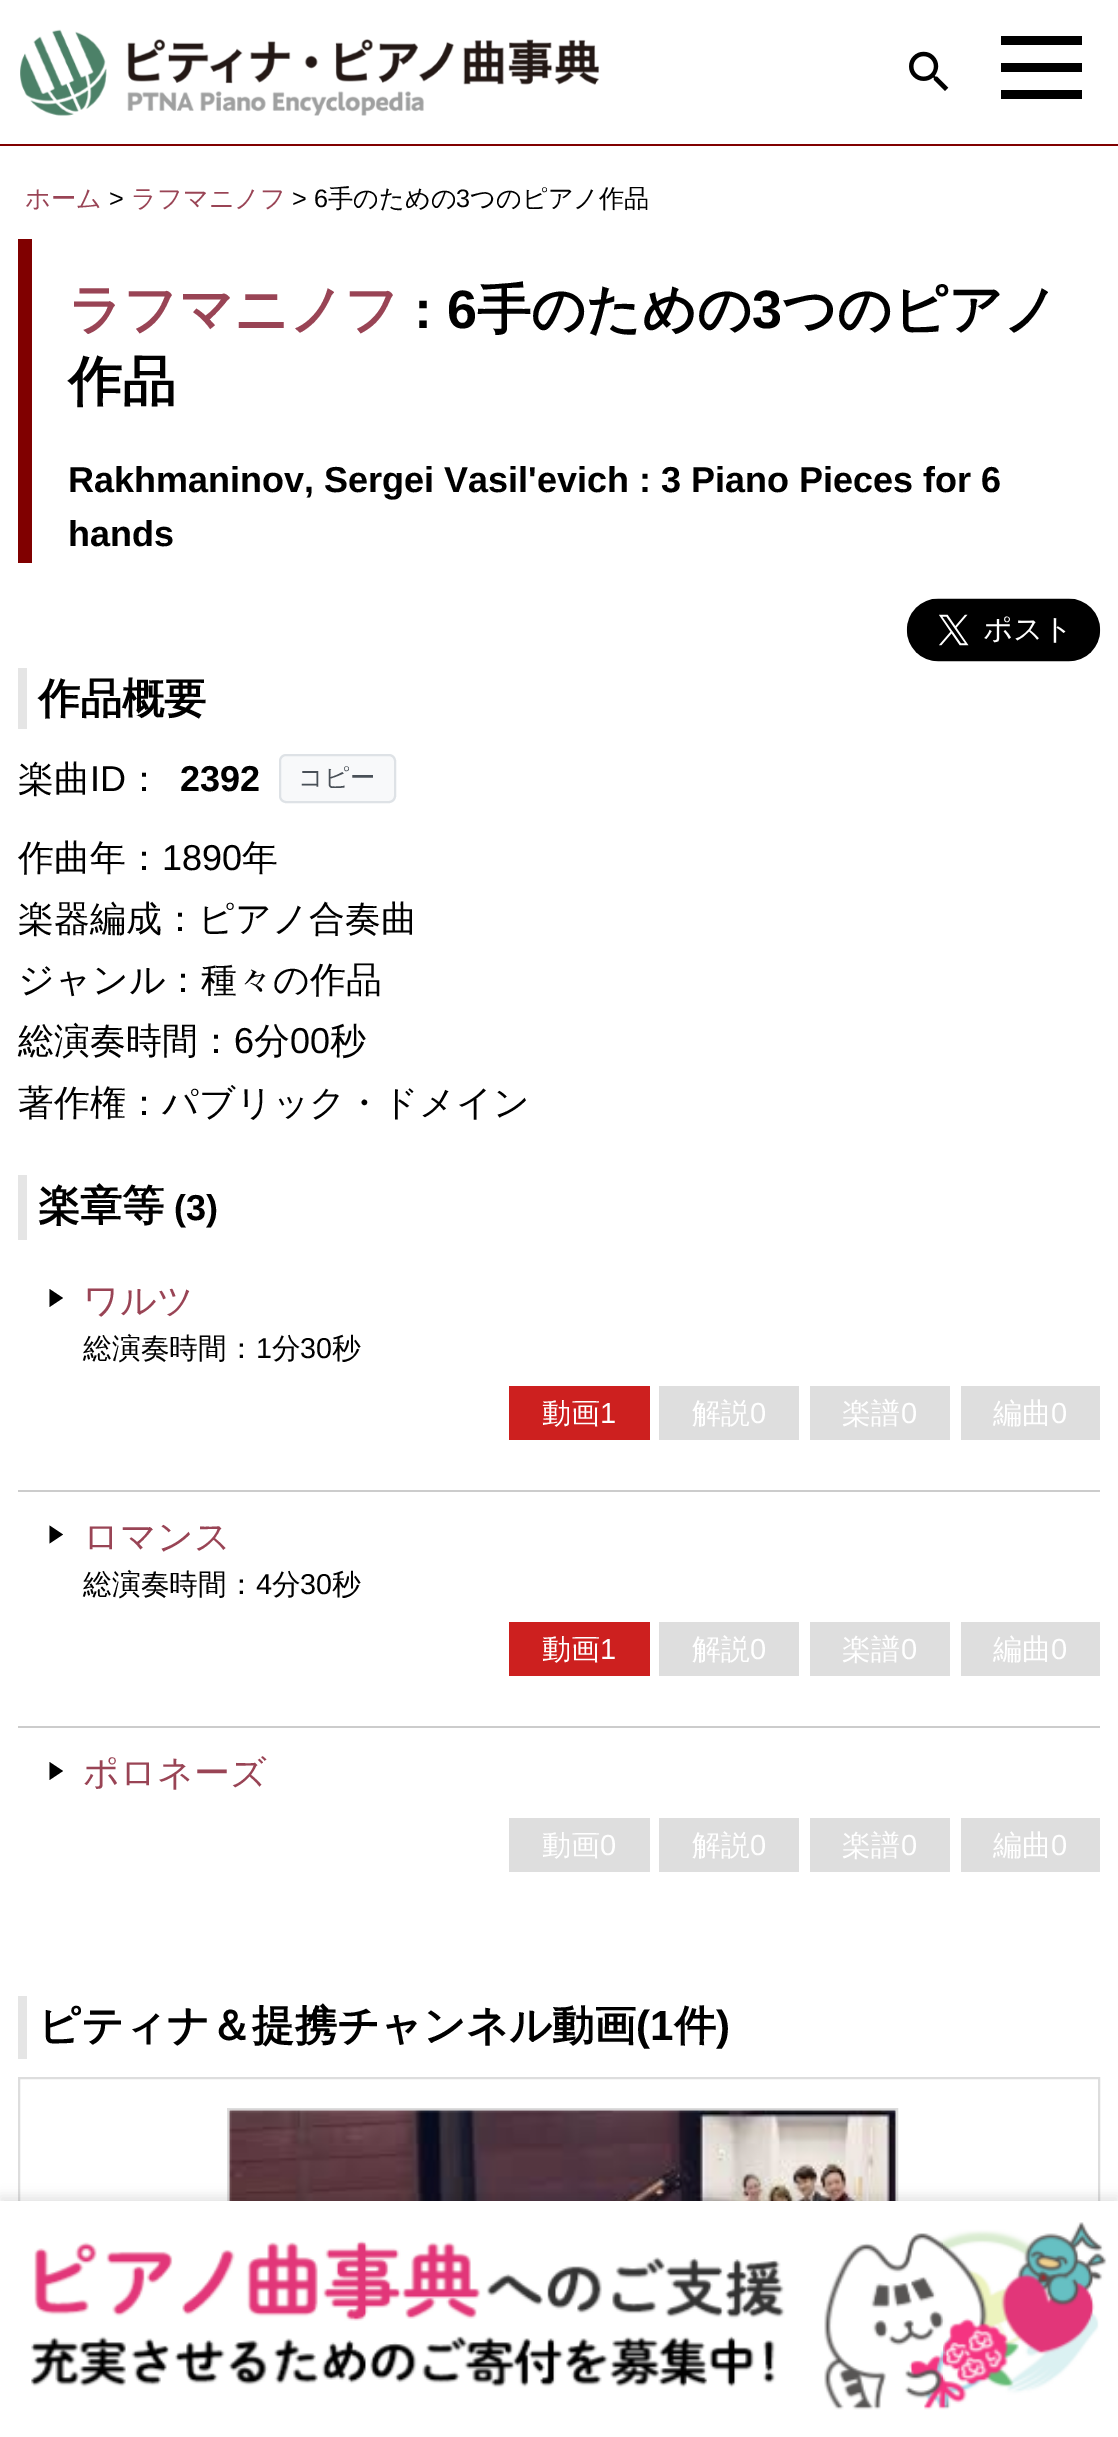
%!PS
<< /PageSize [1118 2437] /PageUsesTransparency true >> setpagedevice
/rgb { 3 { 255 div 3 1 roll } repeat setrgbcolor } def
/font { [ exch dup neg 0 0 3 -1 roll 0 0 ] selectfont } def
/text { moveto show } def
/alpha { dup .setfillconstantalpha .setstrokeconstantalpha } def
/roundrect { 5 dict begin { /r /h /w /y /x } { exch def } forall
  x r add y moveto x w add y 2 copy h add r arct x w add y h add x 1 index r arct
  x y h add x y r arct x y 2 copy exch w add exch r arct closepath end } def
/shadow { 12 dict begin { /a /b /q /h /w /y /x } { exch def } forall gsave /was 0 def
  9 -2 -9 { dup b mul 4 div /e exch def 1 sub .425 mul 2.718 exch exp 1 add a .99 .min exch div /now exch def
    1 1 now sub 1 was sub div sub alpha /was now def
    w h .min e 2 mul add 0 gt { x e sub y e sub w e 2 mul add h e 2 mul add
      q e add b .6 mul add w h .min 2 div e add .min 0 .max roundrect fill } if } for grestore end } def
/picture { 5 dict begin { /h /w /y /x /name } { exch def } forall
  gsave x y translate w h scale
  w h 8 [w 0 0 h 0 0] name (r) file false 3 colorimage grestore end } def
0 .pushpdf14devicefilter
0 2437 translate 1 -1 scale
4 setmiterlimit
255 255 255 rgb
0 0 1118 2437 rectfill
(img_01.rgb) 20 29 580 87 picture
(img_02.rgb) 909 51 40 40 picture
128 0 0 rgb
0 144 1118 2 rectfill
0 0 0 rgb
1001 36 81 9 rectfill
1001 63 81 9 rectfill
1001 90 81 9 rectfill
128 0 0 rgb
18 239 14 324 rectfill
(img_03.rgb) 906 598 195 64 picture
229 229 229 rgb
18 668 9 61 rectfill
248 249 250 rgb
280 755 115 47 6 roundrect gsave fill grestore
222 226 230 rgb
2 setlinewidth
stroke
229 229 229 rgb
18 1175 9 65 rectfill
204 204 204 rgb
18 1490 1082 2 rectfill
0 0 0 rgb
49.5 1307 moveto 0 -18 rlineto 13.5 9 rlineto closepath fill
205 32 31 rgb
509 1386 141 54 rectfill
222 222 222 rgb
659 1386 140 54 rectfill
810 1386 140 54 rectfill
961 1386 139 54 rectfill
204 204 204 rgb
18 1726 1082 2 rectfill
0 0 0 rgb
49.5 1543.5 moveto 0 -18 rlineto 13.5 9 rlineto closepath fill
205 32 31 rgb
509 1622 141 54 rectfill
222 222 222 rgb
659 1622 140 54 rectfill
810 1622 140 54 rectfill
961 1622 139 54 rectfill
0 0 0 rgb
49.5 1780 moveto 0 -18 rlineto 13.5 9 rlineto closepath fill
222 222 222 rgb
509 1818 141 54 rectfill
659 1818 140 54 rectfill
810 1818 140 54 rectfill
961 1818 139 54 rectfill
229 229 229 rgb
18 1996 9 63 rectfill
221 221 221 rgb
19 2078 1080 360 rectstroke
228 2109 669 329 rectstroke
(img_04.rgb) 228 2109 668 92 picture
0 0 0 rgb
0 2196 1118 239 0 5.5 0.1 shadow
255 255 255 rgb
0 2201 1118 236 rectfill
(img_05.rgb) 31 2222 1076 188 picture
/WenQuanYiZenHei-Medium 25.25 font
153 68 85 rgb
(ホーム) 25 207 text
/LiberationSans-Regular 25.25 font
0 0 0 rgb
(>) 109 207 text
/WenQuanYiZenHei-Medium 25.25 font
153 68 85 rgb
(ラフマニノフ) 131 207 text
/LiberationSans-Regular 25.25 font
0 0 0 rgb
(> 6) 292 207 text
/WenQuanYiZenHei-Medium 25.25 font
(手のための) 328 207 text
/LiberationSans-Regular 25.25 font
(3) 456 207 text
/WenQuanYiZenHei-Medium 25.25 font
(つのピアノ作品) 470 207 text
/WenQuanYiZenHei-Bold 54 font
153 68 85 rgb
(ラフマニノフ) 68 328 text
/LiberationSans-Bold 54 font
0 0 0 rgb
(: 6) 414 328 text
/WenQuanYiZenHei-Bold 54 font
(手のための) 477 328 text
/LiberationSans-Bold 54 font
(3) 752 328 text
/WenQuanYiZenHei-Bold 54 font
(つのピアノ) 782 328 text
(作品) 68 400 text
/LiberationSans-Bold 36 font
(Rakhmaninov, Sergei Vasil'evich : 3 Piano Pieces for 6) 68 492 text
(hands) 68 546 text
/WenQuanYiZenHei-Bold 42.1 font
(作品概要) 38 713 text
/WenQuanYiZenHei-Medium 36 font
(楽曲) 18 791 text
/LiberationSans-Regular 36 font
(ID) 90 791 text
/WenQuanYiZenHei-Medium 36 font
(：) 126 791 text
/LiberationSans-Bold 36 font
(2392) 180 791 text
/WenQuanYiZenHei-Medium 25.25 font
73 80 87 rgb
(コピー) 298 786 text
/WenQuanYiZenHei-Medium 36 font
0 0 0 rgb
(作曲年：) 18 870 text
/LiberationSans-Regular 36 font
(1890) 162 870 text
/WenQuanYiZenHei-Medium 36 font
(年) 242 870 text
(楽器編成：ピアノ合奏曲) 18 931 text
(ジャンル：種々の作品) 18 992 text
(総演奏時間：) 18 1053 text
/LiberationSans-Regular 36 font
(6) 234 1053 text
/WenQuanYiZenHei-Medium 36 font
(分) 254 1053 text
/LiberationSans-Regular 36 font
(00) 290 1053 text
/WenQuanYiZenHei-Medium 36 font
(秒) 330 1053 text
(著作権：パブリック・ドメイン) 18 1115 text
/WenQuanYiZenHei-Bold 42.1 font
(楽章等) 38 1220 text
/LiberationSans-Bold 36 font
(\(3\)) 174 1220 text
/WenQuanYiZenHei-Medium 36 font
153 68 85 rgb
(ワルツ) 83 1313 text
/WenQuanYiZenHei-Medium 28.75 font
0 0 0 rgb
(総演奏時間：) 83 1358 text
/LiberationSans-Regular 28.75 font
(1) 256 1358 text
/WenQuanYiZenHei-Medium 28.75 font
(分) 272 1358 text
/LiberationSans-Regular 28.75 font
(30) 300 1358 text
/WenQuanYiZenHei-Medium 28.75 font
(秒) 332 1358 text
/WenQuanYiZenHei-Medium 29 font
255 255 255 rgb
(動画) 542 1423 text
/LiberationSans-Regular 29 font
(1) 600 1423 text
/WenQuanYiZenHei-Medium 29 font
(解説) 692 1423 text
/LiberationSans-Regular 29 font
(0) 750 1423 text
/WenQuanYiZenHei-Medium 29 font
(楽譜) 842 1423 text
/LiberationSans-Regular 29 font
(0) 901 1423 text
/WenQuanYiZenHei-Medium 29 font
(編曲) 993 1423 text
/LiberationSans-Regular 29 font
(0) 1051 1423 text
/WenQuanYiZenHei-Medium 36 font
153 68 85 rgb
(ロマンス) 83 1549 text
/WenQuanYiZenHei-Medium 28.75 font
0 0 0 rgb
(総演奏時間：) 83 1594 text
/LiberationSans-Regular 28.75 font
(4) 256 1594 text
/WenQuanYiZenHei-Medium 28.75 font
(分) 272 1594 text
/LiberationSans-Regular 28.75 font
(30) 300 1594 text
/WenQuanYiZenHei-Medium 28.75 font
(秒) 332 1594 text
/WenQuanYiZenHei-Medium 29 font
255 255 255 rgb
(動画) 542 1659 text
/LiberationSans-Regular 29 font
(1) 600 1659 text
/WenQuanYiZenHei-Medium 29 font
(解説) 692 1659 text
/LiberationSans-Regular 29 font
(0) 750 1659 text
/WenQuanYiZenHei-Medium 29 font
(楽譜) 842 1659 text
/LiberationSans-Regular 29 font
(0) 901 1659 text
/WenQuanYiZenHei-Medium 29 font
(編曲) 993 1659 text
/LiberationSans-Regular 29 font
(0) 1051 1659 text
/WenQuanYiZenHei-Medium 36 font
153 68 85 rgb
(ポロネーズ) 83 1785 text
/WenQuanYiZenHei-Medium 29 font
255 255 255 rgb
(動画) 542 1855 text
/LiberationSans-Regular 29 font
(0) 600 1855 text
/WenQuanYiZenHei-Medium 29 font
(解説) 692 1855 text
/LiberationSans-Regular 29 font
(0) 750 1855 text
/WenQuanYiZenHei-Medium 29 font
(楽譜) 842 1855 text
/LiberationSans-Regular 29 font
(0) 901 1855 text
/WenQuanYiZenHei-Medium 29 font
(編曲) 993 1855 text
/LiberationSans-Regular 29 font
(0) 1051 1855 text
/WenQuanYiZenHei-Bold 42.1 font
0 0 0 rgb
(ピティナ＆提携チャンネル動画) 38 2040 text
/LiberationSans-Bold 42.1 font
(\(1) 636 2040 text
/WenQuanYiZenHei-Bold 42.1 font
(件) 674 2040 text
/LiberationSans-Bold 42.1 font
(\)) 716 2040 text
.poppdf14devicefilter showpage
